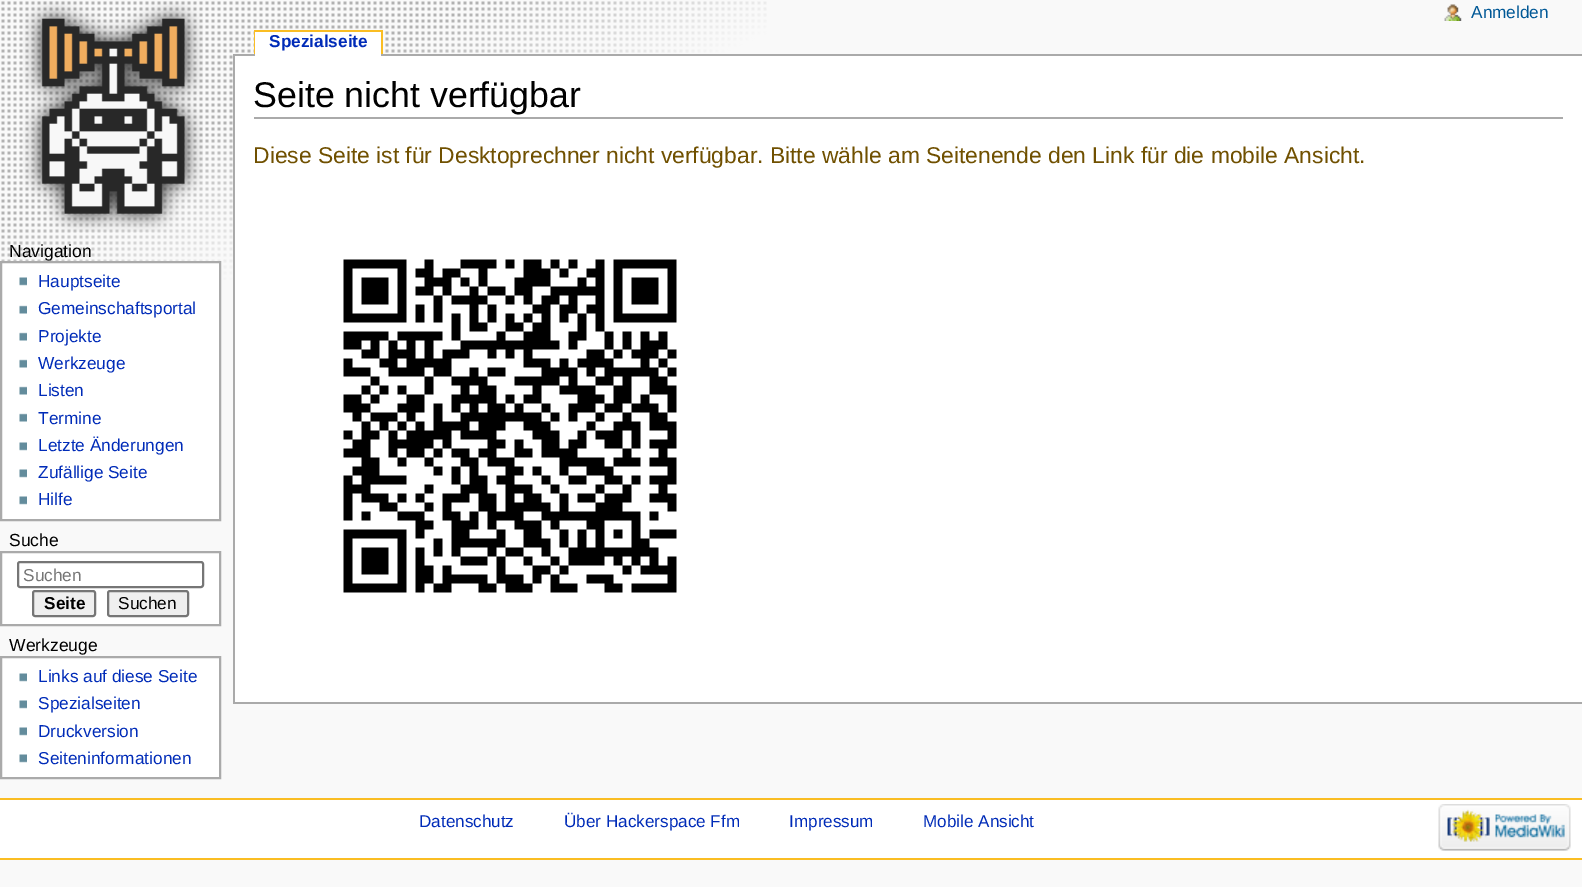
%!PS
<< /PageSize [1582 887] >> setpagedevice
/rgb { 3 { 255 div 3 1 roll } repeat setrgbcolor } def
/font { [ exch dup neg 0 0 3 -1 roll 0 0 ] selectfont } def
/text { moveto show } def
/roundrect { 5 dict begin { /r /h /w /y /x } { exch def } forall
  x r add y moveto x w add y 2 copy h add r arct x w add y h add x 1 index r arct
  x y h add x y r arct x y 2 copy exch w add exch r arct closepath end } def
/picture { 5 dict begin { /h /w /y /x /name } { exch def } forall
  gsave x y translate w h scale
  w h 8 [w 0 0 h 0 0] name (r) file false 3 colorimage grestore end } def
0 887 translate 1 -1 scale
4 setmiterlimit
249 249 249 rgb
0 0 1582 887 rectfill
(img_01.rgb) 1 1 766 279 picture
(img_02.rgb) 23 1 180 231 picture
(img_03.rgb) 1444 4 18 17 picture
250 189 35 rgb
254 30 129 2 rectfill
381 30 2 24 rectfill
254 30 2 24 rectfill
170 170 170 rgb
233 54 1349 2 rectfill
255 255 255 rgb
255 32 126 24 rectfill
1 262 moveto 219 0 rlineto 0 258 rlineto -219 0 rlineto closepath gsave fill grestore
170 170 170 rgb
2 setlinewidth
stroke
(img_04.rgb) 19 277 8 9 picture
(img_05.rgb) 19 305 8 9 picture
(img_05.rgb) 19 332 8 9 picture
(img_05.rgb) 19 359 8 9 picture
(img_05.rgb) 19 386 8 9 picture
(img_05.rgb) 19 413 8 9 picture
(img_04.rgb) 19 442 8 9 picture
(img_04.rgb) 19 469 8 9 picture
(img_04.rgb) 19 496 8 9 picture
255 255 255 rgb
1 552 moveto 219 0 rlineto 0 73 rlineto -219 0 rlineto closepath gsave fill grestore
170 170 170 rgb
stroke
118 118 118 rgb
18 562 185 25 2 roundrect stroke
239 239 239 rgb
33 591 62 25 2 roundrect gsave fill grestore
118 118 118 rgb
stroke
239 239 239 rgb
108 591 80 25 2 roundrect gsave fill grestore
118 118 118 rgb
stroke
255 255 255 rgb
1 657 moveto 219 0 rlineto 0 121 rlineto -219 0 rlineto closepath gsave fill grestore
170 170 170 rgb
stroke
(img_04.rgb) 19 673 8 9 picture
(img_04.rgb) 19 700 8 9 picture
(img_04.rgb) 19 727 8 9 picture
(img_04.rgb) 19 754 8 9 picture
255 255 255 rgb
235 56 1347 646 rectfill
170 170 170 rgb
233 702 1349 2 rectfill
233 54 2 650 rectfill
254 117 1309 2 rectfill
(img_06.rgb) 343 259 334 334 picture
255 255 255 rgb
0 800 1582 58 rectfill
250 189 35 rgb
0 798 1582 2 rectfill
0 858 1582 2 rectfill
(img_07.rgb) 1438 804 133 47 picture
/LiberationSans-Regular 17.25 font
0 88 150 rgb
(Anmelden) 1471 18 text
/LiberationSans-Bold 17.25 font
0 43 184 rgb
(Spezialseite) 269 47 text
/LiberationSans-Regular 17.5 font
0 0 0 rgb
(Navigation) 9 257 text
/LiberationSans-Regular 17.25 font
0 43 184 rgb
(Hauptseite) 38 287 text
(Gemeinschaftsportal) 38 314 text
(Projekte) 38 342 text
(Werkzeuge) 38 369 text
(Listen) 38 396 text
(Termine) 38 424 text
(Letzte Änderungen) 38 451 text
(Zufällige Seite) 38 478 text
(Hilfe) 38 505 text
/LiberationSans-Regular 17.5 font
0 0 0 rgb
(Suche) 9 546 text
/LiberationSans-Regular 17.25 font
117 117 117 rgb
(Suchen) 23 581 text
/LiberationSans-Bold 17.25 font
0 0 0 rgb
(Seite) 44 609 text
/LiberationSans-Regular 17.25 font
(Suchen) 118 609 text
/LiberationSans-Regular 17.5 font
(Werkzeuge) 9 651 text
/LiberationSans-Regular 17.25 font
0 43 184 rgb
(Links auf diese Seite) 38 682 text
(Spezialseiten) 38 709 text
(Druckversion) 38 737 text
(Seiteninformationen) 38 764 text
/LiberationSans-Regular 35.75 font
0 0 0 rgb
(Seite nicht verfügbar) 253 107 text
/LiberationSans-Regular 22.85 font
112 80 0 rgb
(Diese Seite ist für Desktoprechner nicht verfügbar. Bitte wähle am Seitenende den Link für die mobile Ansicht.) 253 163 text
/LiberationSans-Regular 17.1 font
0 43 184 rgb
(Datenschutz) 419 827 text
(Über Hackerspace Ffm) 564 827 text
(Impressum) 789 827 text
(Mobile Ansicht) 923 827 text
showpage
